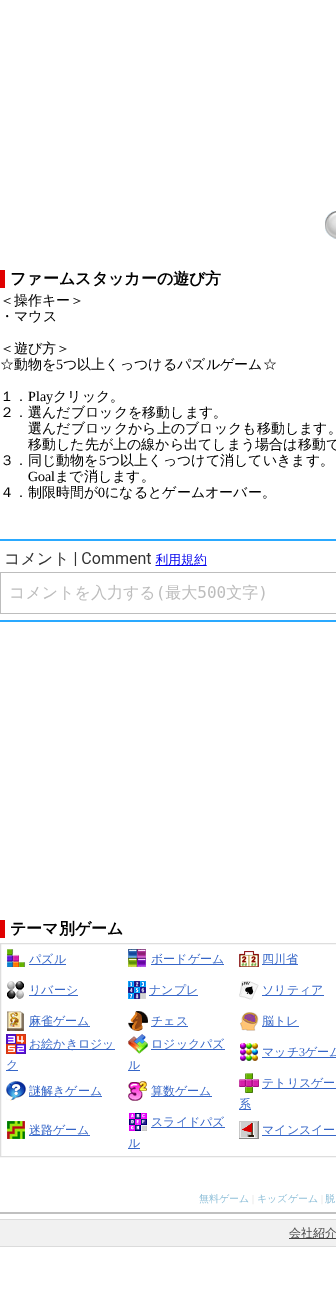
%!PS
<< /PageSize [336 1298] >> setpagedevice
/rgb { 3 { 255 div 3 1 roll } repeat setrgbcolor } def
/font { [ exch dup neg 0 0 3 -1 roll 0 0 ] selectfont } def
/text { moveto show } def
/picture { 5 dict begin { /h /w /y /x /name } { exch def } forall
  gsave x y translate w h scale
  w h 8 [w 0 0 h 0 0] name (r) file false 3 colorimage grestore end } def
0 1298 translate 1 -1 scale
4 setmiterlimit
255 255 255 rgb
0 0 336 1298 rectfill
(img_01.rgb) 325 211 11 28 picture
224 0 0 rgb
0 270 5 18 rectfill
42 169 255 rgb
0 539 336 2 rectfill
(img_02.rgb) 0 552 336 62 picture
0 620 336 2 rectfill
224 0 0 rgb
0 920 5 18 rectfill
222 222 222 rgb
0.5 943.5 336 213 rectstroke
(img_03.rgb) 7 949 19 18 picture
54 102 200 rgb
29 964 37 1 rectfill
(img_04.rgb) 128 949 18 18 picture
151 964 73 1 rectfill
(img_05.rgb) 239 951 20 16 picture
262 964 36 1 rectfill
(img_06.rgb) 7 981 17 18 picture
29 995 49 1 rectfill
(img_07.rgb) 128 981 18 18 picture
149 995 49 1 rectfill
(img_08.rgb) 239 980 20 20 picture
262 995 62 1 rectfill
(img_09.rgb) 7 1011 17 20 picture
29 1026 61 1 rectfill
(img_10.rgb) 128 1011 20 20 picture
151 1026 37 1 rectfill
(img_11.rgb) 240 1012 19 19 picture
262 1026 37 1 rectfill
(img_12.rgb) 6 1034 20 20 picture
29 1049 86 1 rectfill
6 1070 12 1 rectfill
(img_13.rgb) 128 1034 20 20 picture
151 1049 74 1 rectfill
128 1070 12 1 rectfill
(img_14.rgb) 240 1043 18 18 picture
262 1057 74 1 rectfill
(img_15.rgb) 6 1081 20 20 picture
29 1096 73 1 rectfill
(img_16.rgb) 128 1081 19 20 picture
151 1096 61 1 rectfill
(img_17.rgb) 239 1073 20 20 picture
262 1088 74 1 rectfill
239 1109 12 1 rectfill
(img_18.rgb) 7 1121 18 18 picture
29 1135 61 1 rectfill
(img_19.rgb) 129 1113 18 18 picture
151 1127 74 1 rectfill
128 1148 12 1 rectfill
(img_20.rgb) 239 1121 20 18 picture
262 1135 74 1 rectfill
192 192 192 rgb
0 1212 336 2 rectfill
241 241 241 rgb
0 1220 336 26 rectfill
219 219 219 rgb
0 1219 336 1 rectfill
0 1246 336 1 rectfill
66 66 66 rgb
289 1238 47 1 rectfill
/WenQuanYiZenHei-Bold 16 font
0 0 0 rgb
(ファームスタッカーの遊び方) 10 284 text
/WenQuanYiZenHei-Medium 14 font
(＜操作キー＞) 0 305 text
(・マウス) 0 321 text
(＜遊び方＞) 0 353 text
(☆動物を) 0 369 text
/LiberationSerif-Regular 14 font
(5) 56 369 text
/WenQuanYiZenHei-Medium 14 font
(つ以上くっつけるパズルゲーム☆) 63 369 text
(１．) 0 401 text
/LiberationSerif-Regular 14 font
(Play) 28 401 text
/WenQuanYiZenHei-Medium 14 font
(クリック。) 53 401 text
(２．選んだブロックを移動します。) 0 417 text
(選んだブロックから上のブロックも移動します。) 28 433 text
(移動した先が上の線から出てしまう場合は移動で) 28 449 text
(３．同じ動物を) 0 465 text
/LiberationSerif-Regular 14 font
(5) 99 465 text
/WenQuanYiZenHei-Medium 14 font
(つ以上くっつけて消していきます。) 106 465 text
/LiberationSerif-Regular 14 font
(Goal) 28 481 text
/WenQuanYiZenHei-Medium 14 font
(まで消します。) 55 481 text
(４．制限時間が) 0 497 text
/LiberationSerif-Regular 14 font
(0) 98 497 text
/WenQuanYiZenHei-Medium 14 font
(になるとゲームオーバー。) 105 497 text
/WenQuanYiZenHei-Bold 16 font
(テーマ別ゲーム) 10 934 text
/WenQuanYiZenHei-Medium 12 font
54 102 200 rgb
(パズル) 29 963 text
(ボードゲーム) 151 963 text
(四川省) 262 963 text
(リバーシ) 29 994 text
(ナンプレ) 149 994 text
(ソリティア) 262 994 text
(麻雀ゲーム) 29 1025 text
(チェス) 151 1025 text
(脳トレ) 262 1025 text
(お絵かきロジッ) 29 1048 text
(ク) 6 1069 text
(ロジックパズ) 151 1048 text
(ル) 128 1069 text
(マッチ) 262 1056 text
/LiberationSerif-Regular 12 font
(3) 299 1056 text
/WenQuanYiZenHei-Medium 12 font
(ゲーム) 305 1056 text
(謎解きゲーム) 29 1095 text
(算数ゲーム) 151 1095 text
(テトリスゲー) 262 1087 text
(系) 239 1108 text
(迷路ゲーム) 29 1134 text
(スライドパズ) 151 1126 text
(ル) 128 1147 text
(マインスイー) 262 1134 text
/WenQuanYiZenHei-Medium 10 font
140 190 216 rgb
(無料ゲーム) 199 1202 text
/LiberationSerif-Regular 10 font
219 219 219 rgb
(|) 252 1202 text
/WenQuanYiZenHei-Medium 10 font
140 190 216 rgb
(キッズゲーム) 257 1202 text
/LiberationSerif-Regular 10 font
219 219 219 rgb
(|) 321 1202 text
/WenQuanYiZenHei-Medium 10 font
140 190 216 rgb
(脱) 325 1202 text
/WenQuanYiZenHei-Medium 12 font
66 66 66 rgb
(会社紹介) 289 1237 text
showpage
